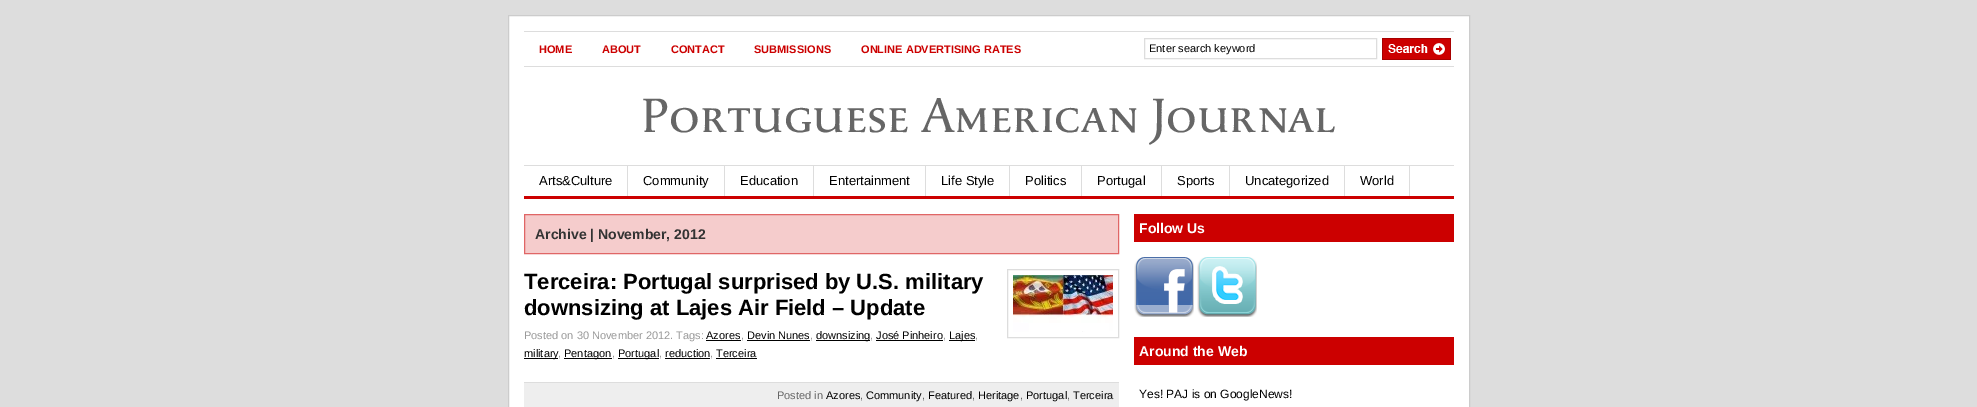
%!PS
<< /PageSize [1977 407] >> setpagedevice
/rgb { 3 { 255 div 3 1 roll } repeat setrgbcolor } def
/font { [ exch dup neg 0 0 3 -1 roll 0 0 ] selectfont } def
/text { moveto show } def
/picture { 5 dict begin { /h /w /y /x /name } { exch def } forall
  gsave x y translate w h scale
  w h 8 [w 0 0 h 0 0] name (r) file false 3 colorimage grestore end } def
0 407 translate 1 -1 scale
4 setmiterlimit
221 221 221 rgb
0 0 1977 407 rectfill
255 255 255 rgb
508.5 15.5 moveto 961 0 rlineto 0 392 rlineto -961 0 rlineto closepath gsave fill grestore
204 204 204 rgb
stroke
221 221 221 rgb
524 31 930 1 rectfill
524 66 930 1 rectfill
1144.5 38.5 232 20 rectstroke
(img_01.rgb) 1382 38 69 22 picture
524 165 930 1 rectfill
204 0 0 rgb
524 196 930 3 rectfill
221 221 221 rgb
627 166 1 30 rectfill
724 166 1 30 rectfill
813 166 1 30 rectfill
925 166 1 30 rectfill
1009 166 1 30 rectfill
1081 166 1 30 rectfill
1161 166 1 30 rectfill
1229 166 1 30 rectfill
1344 166 1 30 rectfill
1409 166 1 30 rectfill
245 204 204 rgb
524.5 214.5 moveto 594 0 rlineto 0 39 rlineto -594 0 rlineto closepath gsave fill grestore
224 102 102 rgb
stroke
221 221 221 rgb
1007.5 269.5 111 68 rectstroke
(img_02.rgb) 1013 275 100 57 picture
0 0 0 rgb
706 340 35 1 rectfill
747 340 63 1 rectfill
816 340 54 1 rectfill
876 340 67 1 rectfill
949 340 26 1 rectfill
524 358 34 1 rectfill
564 358 48 1 rectfill
618 358 41 1 rectfill
665 358 45 1 rectfill
716 358 41 1 rectfill
238 238 238 rgb
524 383 595 24 rectfill
221 221 221 rgb
524 382 595 1 rectfill
204 0 0 rgb
1134 214 320 28 rectfill
(img_03.rgb) 1134 257 60 60 picture
(img_04.rgb) 1197 257 60 60 picture
1134 337 320 28 rectfill
/LiberationSans-Bold 11 font
(HOME) 539 53 text
(ABOUT) 602 53 text
(CONTACT) 671 53 text
(SUBMISSIONS) 754 53 text
(ONLINE ADVERTISING RATES) 861 53 text
/LiberationSans-Regular 11 font
0 0 0 rgb
(Enter search keyword) 1149 52 text
/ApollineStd-Medium 50 font
102 102 102 rgb
(Portuguese American Journal) 641 132 text
/LiberationSans-Regular 13 font
0 0 0 rgb
(Arts&Culture) 539 185 text
(Community) 643 185 text
(Education) 740 185 text
(Entertainment) 829 185 text
(Life Style) 941 185 text
(Politics) 1025 185 text
(Portugal) 1097 185 text
(Sports) 1177 185 text
(Uncategorized) 1245 185 text
(World) 1360 185 text
/LiberationSans-Bold 14 font
51 51 51 rgb
(Archive | November, 2012) 535 239 text
/LiberationSans-Bold 22 font
0 0 0 rgb
(Terceira: Portugal surprised by U.S. military) 524 289 text
(downsizing at Lajes Air Field – Update) 524 315 text
/LiberationSans-Regular 11 font
153 153 153 rgb
(Posted on 30 November 2012. Tags:) 524 339 text
0 0 0 rgb
(Azores) 706 339 text
153 153 153 rgb
(,) 741 339 text
0 0 0 rgb
(Devin Nunes) 747 339 text
153 153 153 rgb
(,) 810 339 text
0 0 0 rgb
(downsizing) 816 339 text
153 153 153 rgb
(,) 870 339 text
0 0 0 rgb
(José Pinheiro) 876 339 text
153 153 153 rgb
(,) 943 339 text
0 0 0 rgb
(Lajes) 949 339 text
153 153 153 rgb
(,) 975 339 text
0 0 0 rgb
(military) 524 357 text
153 153 153 rgb
(,) 558 357 text
0 0 0 rgb
(Pentagon) 564 357 text
153 153 153 rgb
(,) 612 357 text
0 0 0 rgb
(Portugal) 618 357 text
153 153 153 rgb
(,) 659 357 text
0 0 0 rgb
(reduction) 665 357 text
153 153 153 rgb
(,) 710 357 text
0 0 0 rgb
(Terceira) 716 357 text
102 102 102 rgb
(Posted in) 777 399 text
0 0 0 rgb
(Azores) 826 399 text
102 102 102 rgb
(,) 860 399 text
0 0 0 rgb
(Community) 866 399 text
102 102 102 rgb
(,) 922 399 text
0 0 0 rgb
(Featured) 928 399 text
102 102 102 rgb
(,) 972 399 text
0 0 0 rgb
(Heritage) 978 399 text
102 102 102 rgb
(,) 1020 399 text
0 0 0 rgb
(Portugal) 1026 399 text
102 102 102 rgb
(,) 1067 399 text
0 0 0 rgb
(Terceira) 1073 399 text
/LiberationSans-Bold 14 font
255 255 255 rgb
(Follow Us) 1139 233 text
(Around the Web) 1139 356 text
/LiberationSans-Regular 12 font
0 0 0 rgb
(Yes! PAJ is on GoogleNews!) 1139 398 text
showpage
